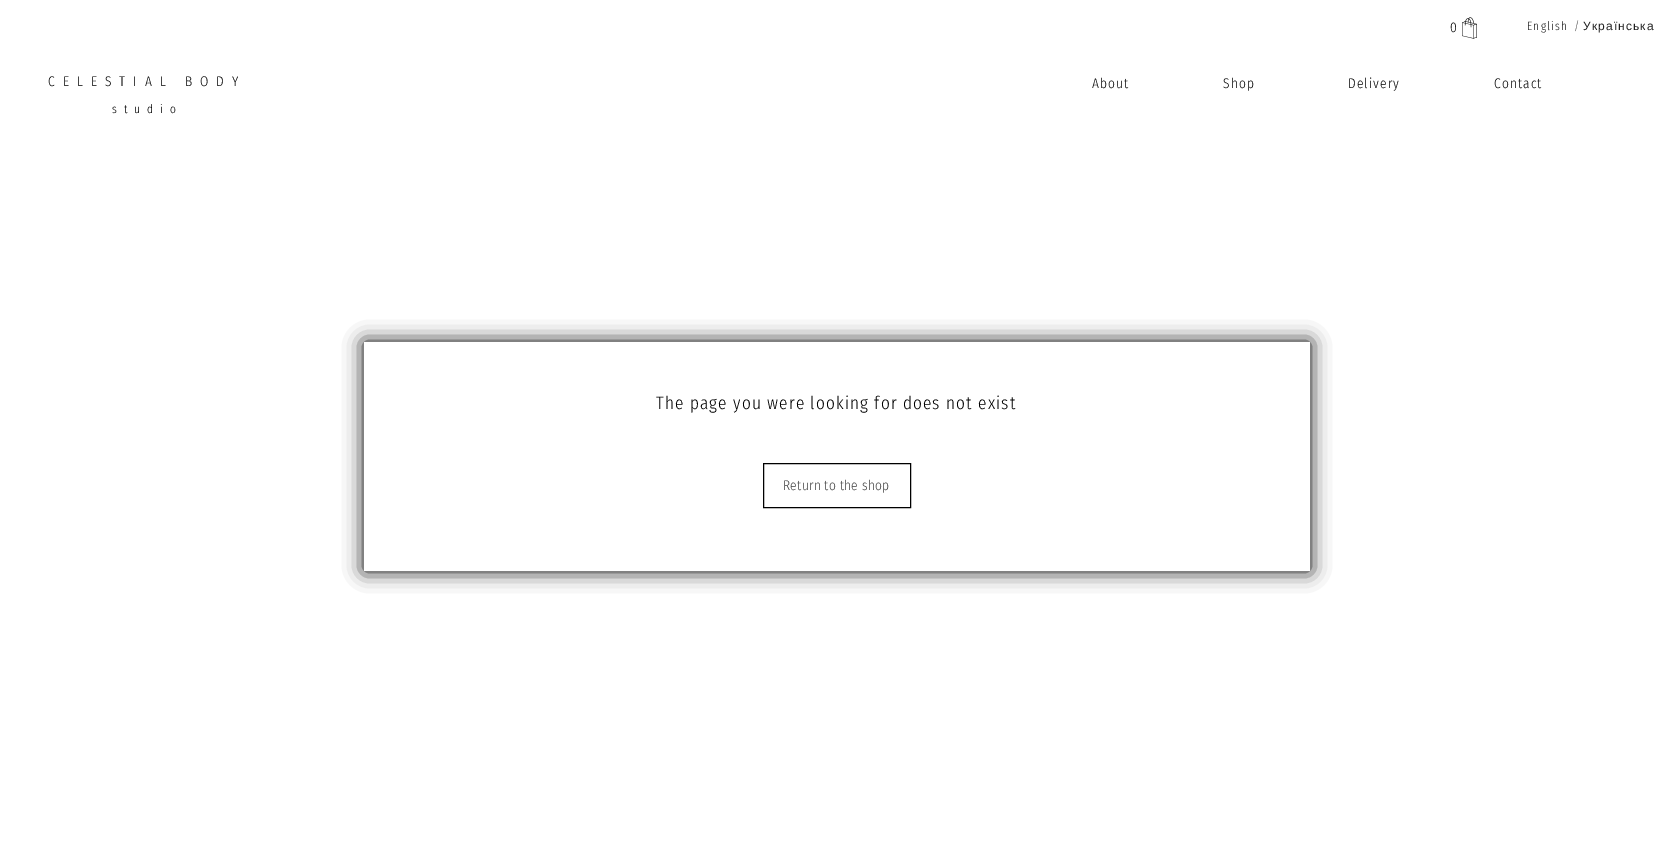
%!PS
<< /PageSize [1674 855] /PageUsesTransparency true >> setpagedevice
/rgb { 3 { 255 div 3 1 roll } repeat setrgbcolor } def
/font { [ exch dup neg 0 0 3 -1 roll 0 0 ] selectfont } def
/alpha { dup .setfillconstantalpha .setstrokeconstantalpha } def
/roundrect { 5 dict begin { /r /h /w /y /x } { exch def } forall
  x r add y moveto x w add y 2 copy h add r arct x w add y h add x 1 index r arct
  x y h add x y r arct x y 2 copy exch w add exch r arct closepath end } def
/shadow { 12 dict begin { /a /b /q /h /w /y /x } { exch def } forall gsave /was 0 def
  9 -2 -9 { dup b mul 4 div /e exch def 1 sub .425 mul 2.718 exch exp 1 add a .99 .min exch div /now exch def
    1 1 now sub 1 was sub div sub alpha /was now def
    w h .min e 2 mul add 0 gt { x e sub y e sub w e 2 mul add h e 2 mul add
      q e add b .6 mul add w h .min 2 div e add .min 0 .max roundrect fill } if } for grestore end } def
/picture { 5 dict begin { /h /w /y /x /name } { exch def } forall
  gsave x y translate w h scale
  w h 8 [w 0 0 h 0 0] name (r) file false 3 colorimage grestore end } def
0 .pushpdf14devicefilter
0 855 translate 1 -1 scale
4 setmiterlimit
255 255 255 rgb
0 0 1674 855 rectfill
(img_01.rgb) 1462 17 15 22 picture
gsave
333 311 moveto 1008 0 rlineto 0 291 rlineto -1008 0 rlineto closepath 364 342 moveto 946 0 rlineto 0 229 rlineto -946 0 rlineto closepath eoclip newpath
0 0 0 rgb
364 342 946 229 0 10 1 shadow
grestore
0 0 0 rgb
763.5 463.5 147 44 rectstroke
/FiraSansCondensed-Light 14 font
1450 32 moveto 1.1 0 (0) ashow
/FiraSansCondensed-Light 12 font
32 32 32 rgb
1527 30 moveto 1.1 0 (English) ashow
76 76 76 rgb
1574 30 moveto 1.1 0 (/) ashow
/LiberationSans-Regular 12 font
32 32 32 rgb
1583 30 moveto 1.1 0 (Українська) ashow
/FiraSansCondensed-Light 14 font
0 0 0 rgb
1092 88 moveto 1.1 0 (About) ashow
1223 88 moveto 1.1 0 (Shop) ashow
1348 88 moveto 1.1 0 (Delivery) ashow
1494 88 moveto 1.1 0 (Contact) ashow
48 86 moveto 8 0 (CELESTIAL BODY) ashow
/FiraSansCondensed-Light 12 font
112 113 moveto 7 0 (studio) ashow
/FiraSansCondensed-Light 18 font
656 409 moveto 1.1 0 (The page you were looking for does not exist) ashow
/FiraSansCondensed-Light 14 font
62 62 62 rgb
783 490 moveto 0.25 0 (Return to the shop) ashow
.poppdf14devicefilter showpage
